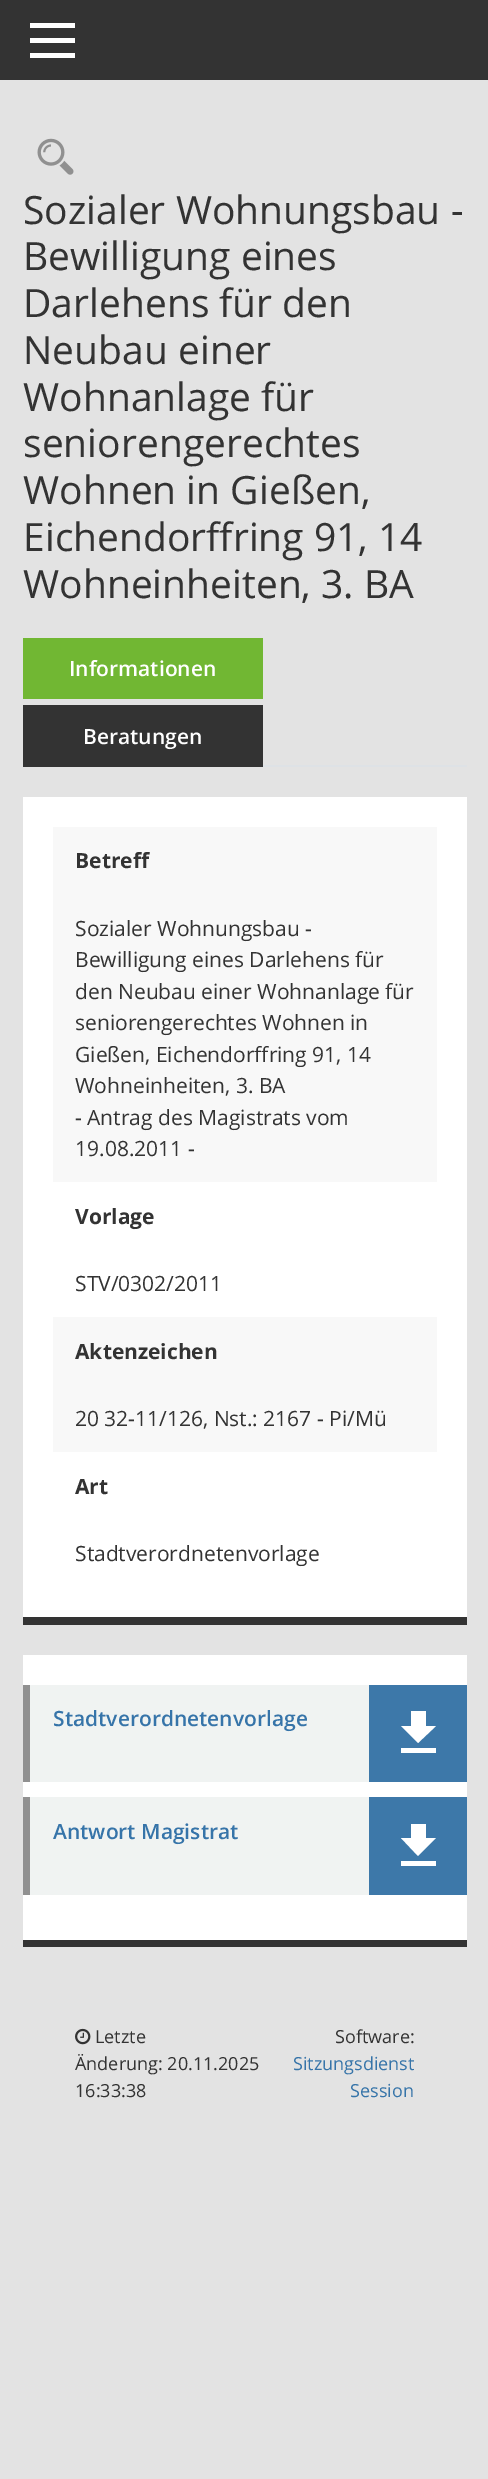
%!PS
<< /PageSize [488 2479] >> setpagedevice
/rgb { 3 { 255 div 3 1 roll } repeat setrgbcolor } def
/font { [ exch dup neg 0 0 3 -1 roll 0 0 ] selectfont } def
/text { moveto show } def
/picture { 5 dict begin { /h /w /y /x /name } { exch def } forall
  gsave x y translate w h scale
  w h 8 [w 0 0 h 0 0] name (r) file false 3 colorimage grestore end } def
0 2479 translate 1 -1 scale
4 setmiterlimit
227 227 227 rgb
0 0 488 2479 rectfill
51 51 51 rgb
0 0 488 80 rectfill
255 255 255 rgb
30 23 45 5 rectfill
30 38 45 5 rectfill
30 53 45 5 rectfill
(img_01.rgb) 37 138 37 37 picture
222 226 230 rgb
263 765 204 2 rectfill
113 183 51 rgb
23 638 240 61 rectfill
51 51 51 rgb
23 705 240 62 rectfill
255 255 255 rgb
23 797 444 820 rectfill
51 51 51 rgb
23 1617 444 8 rectfill
248 248 248 rgb
53 827 384 355 rectfill
53 1317 384 135 rectfill
255 255 255 rgb
23 1655 444 285 rectfill
51 51 51 rgb
23 1940 444 7 rectfill
240 243 242 rgb
30 1685 339 97 rectfill
144 144 144 rgb
23 1685 7 97 rectfill
61 120 169 rgb
369 1685 98 97 rectfill
255 255 255 rgb
436 1726 moveto -10 0 rlineto 0 -15 rlineto -15 0 rlineto 0 15 rlineto -10 0 rlineto 17 17 rlineto closepath 401 1748 moveto 0 5 rlineto 35 0 rlineto 0 -5 rlineto closepath fill
240 243 242 rgb
30 1797 339 98 rectfill
144 144 144 rgb
23 1797 7 98 rectfill
61 120 169 rgb
369 1797 98 98 rectfill
255 255 255 rgb
436 1838 moveto -10 0 rlineto 0 -14 rlineto -15 0 rlineto 0 14 rlineto -10 0 rlineto 17 18 rlineto closepath 401 1861 moveto 0 5 rlineto 35 0 rlineto 0 -5 rlineto closepath fill
(img_02.rgb) 75 2028 16 17 picture
/OpenSans-Regular 39 font
51 51 51 rgb
(Sozialer Wohnungsbau -) 23 224 text
(Bewilligung eines) 23 270 text
(Darlehens für den) 23 317 text
(Neubau einer) 23 364 text
(Wohnanlage für) 23 411 text
(seniorengerechtes) 23 457 text
(Wohnen in Gießen,) 23 504 text
(Eichendorffring 91, 14) 23 551 text
(Wohneinheiten, 3. BA) 23 598 text
/OpenSans-SemiBold 21 font
255 255 255 rgb
(Informationen) 69 676 text
(Beratungen) 83 744 text
/OpenSans-Bold 21 font
51 51 51 rgb
(Betreff) 75 868 text
/OpenSans-Regular 21 font
(Sozialer Wohnungsbau -) 75 936 text
(Bewilligung eines Darlehens für) 75 967 text
(den Neubau einer Wohnanlage für) 75 999 text
(seniorengerechtes Wohnen in) 75 1030 text
(Gießen, Eichendorffring 91, 14) 75 1062 text
(Wohneinheiten, 3. BA) 75 1093 text
(- Antrag des Magistrats vom) 75 1125 text
(19.08.2011 -) 75 1156 text
/OpenSans-Bold 21 font
(Vorlage) 75 1224 text
/OpenSans-Regular 21 font
(STV/0302/2011) 75 1291 text
/OpenSans-Bold 21 font
(Aktenzeichen) 75 1359 text
/OpenSans-Regular 21 font
(20 32-11/126, Nst.: 2167 - Pi/Mü) 75 1426 text
/OpenSans-Bold 21 font
(Art) 75 1494 text
/OpenSans-Regular 21 font
(Stadtverordnetenvorlage) 75 1561 text
/OpenSans-SemiBold 21 font
54 116 169 rgb
(Stadtverordnetenvorlage) 53 1726 text
(Antwort Magistrat) 53 1839 text
/OpenSans-Regular 18 font
51 51 51 rgb
(Letzte) 95 2043 text
(Änderung: 20.11.2025) 75 2070 text
(16:33:38) 75 2097 text
(Software:) 335 2043 text
54 116 169 rgb
(Sitzungsdienst) 293 2070 text
(Session) 350 2097 text
showpage
